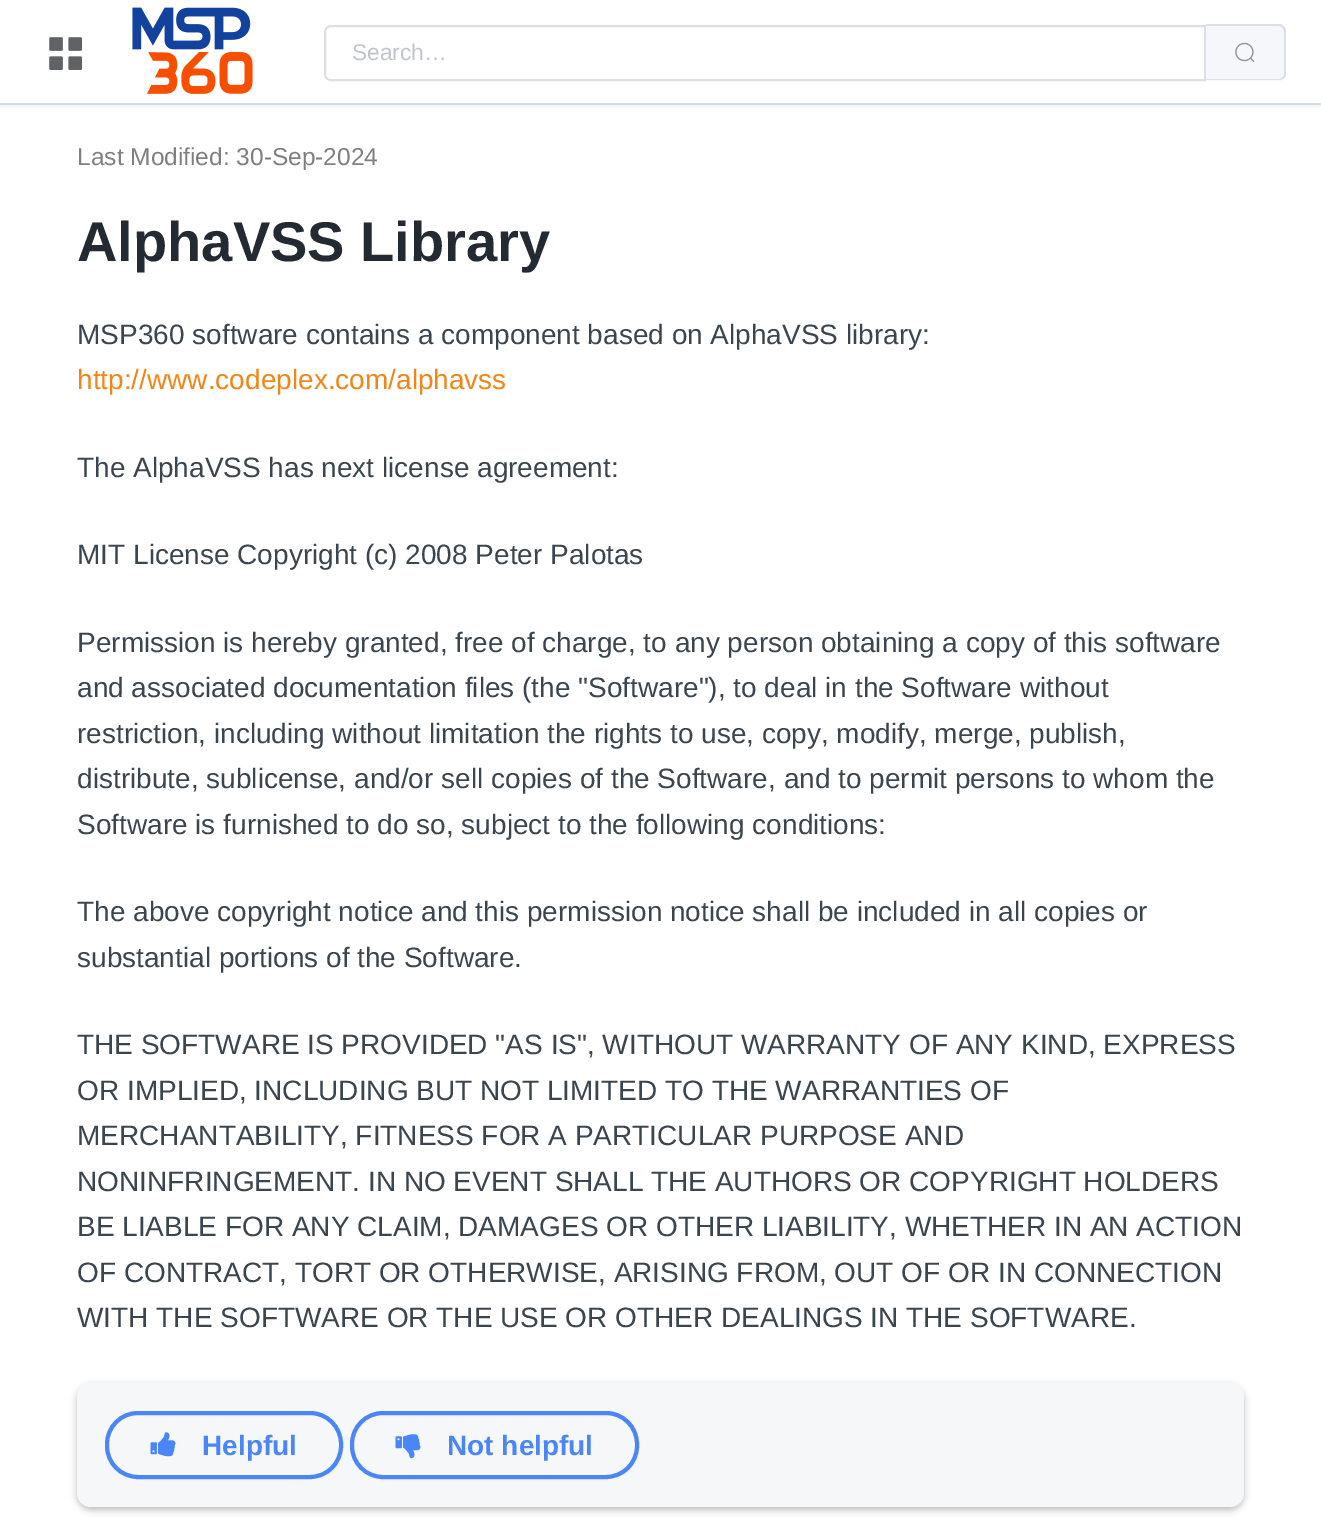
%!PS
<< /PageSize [1321 1521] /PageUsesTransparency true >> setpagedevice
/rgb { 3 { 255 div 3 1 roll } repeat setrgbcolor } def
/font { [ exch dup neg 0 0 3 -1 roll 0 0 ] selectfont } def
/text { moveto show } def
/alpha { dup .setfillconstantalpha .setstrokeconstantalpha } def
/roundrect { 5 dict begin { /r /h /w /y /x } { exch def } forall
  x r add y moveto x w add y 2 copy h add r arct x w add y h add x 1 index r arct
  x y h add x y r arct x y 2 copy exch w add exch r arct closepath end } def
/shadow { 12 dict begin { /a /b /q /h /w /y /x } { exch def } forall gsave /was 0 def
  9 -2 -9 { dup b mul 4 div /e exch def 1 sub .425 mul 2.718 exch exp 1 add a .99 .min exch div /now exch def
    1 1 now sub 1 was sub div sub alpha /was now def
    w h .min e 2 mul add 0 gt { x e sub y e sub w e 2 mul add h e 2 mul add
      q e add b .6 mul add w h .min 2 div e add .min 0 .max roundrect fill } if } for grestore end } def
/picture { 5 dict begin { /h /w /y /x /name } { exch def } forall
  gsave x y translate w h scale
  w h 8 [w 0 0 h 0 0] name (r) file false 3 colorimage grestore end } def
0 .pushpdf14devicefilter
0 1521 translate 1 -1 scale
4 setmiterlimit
255 255 255 rgb
0 0 1321 1521 rectfill
gsave
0 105 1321 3 rectclip
116 129 141 rgb
0 2 1321 105 0 1 0.1 shadow
grestore
212 218 223 rgb
0 103 1321 2 rectfill
(img_01.rgb) 49 37 34 33 picture
(img_02.rgb) 132 7 121 87 picture
220 223 230 rgb
2 setlinewidth
331 26 moveto 874 0 rlineto 0 54 rlineto -874 0 rlineto -3.5 0 -6 -2.5 -6 -6 rcurveto 0 -42 rlineto 0 -3.5 2.5 -6 6 -6 rcurveto closepath stroke
245 247 250 rgb
1206 25 moveto 73 0 rlineto 4 0 7 3 7 7 rcurveto 0 42 rlineto 0 4 -3 7 -7 7 rcurveto -73 0 rlineto closepath fill
220 223 230 rgb
1206 24 moveto 73 0 rlineto 4 0 7 4 7 8 rcurveto 0 42 rlineto 0 3 -3 6 -7 6 rcurveto -73 0 rlineto closepath 1206 26 moveto 73 0 rlineto 3 0 5 3 5 6 rcurveto 0 42 rlineto 0 2 -2 5 -5 5 rcurveto -73 0 rlineto closepath eofill
(img_03.rgb) 1235 42 20 20 picture
0 0 0 rgb
77 1386 1167 124 14 3.5 0.25 shadow
246 247 249 rgb
77 1383 1167 124 14 roundrect fill
74 134 247 rgb
4 setlinewidth
107 1413 234 64 31 roundrect stroke
(img_04.rgb) 150 1432 26 25 picture
352 1413 285 64 31 roundrect stroke
(img_05.rgb) 395 1434 26 25 picture
/LiberationSans-Regular 22.75 font
192 196 204 rgb
(Search…) 352 60 text
/LiberationSans-Regular 24.5 font
127 127 127 rgb
(Last Modified: 30-Sep-2024) 77 165 text
/LiberationSans-Bold 56 font
36 42 49 rgb
(AlphaVSS Library) 77 261 text
/LiberationSans-Regular 28 font
59 69 78 rgb
(MSP360 software contains a component based on AlphaVSS library:) 77 344 text
244 132 20 rgb
(http://www.codeplex.com/alphavss) 77 389 text
59 69 78 rgb
(The AlphaVSS has next license agreement:) 77 477 text
(MIT License Copyright \(c\) 2008 Peter Palotas) 77 564 text
(Permission is hereby granted, free of charge, to any person obtaining a copy of this software) 77 652 text
(and associated documentation files \(the "Software"\), to deal in the Software without) 77 697 text
(restriction, including without limitation the rights to use, copy, modify, merge, publish,) 77 743 text
(distribute, sublicense, and/or sell copies of the Software, and to permit persons to whom the) 77 788 text
(Software is furnished to do so, subject to the following conditions:) 77 834 text
(The above copyright notice and this permission notice shall be included in all copies or) 77 921 text
(substantial portions of the Software.) 77 967 text
(THE SOFTWARE IS PROVIDED "AS IS", WITHOUT WARRANTY OF ANY KIND, EXPRESS) 77 1054 text
(OR IMPLIED, INCLUDING BUT NOT LIMITED TO THE WARRANTIES OF) 77 1100 text
(MERCHANTABILITY, FITNESS FOR A PARTICULAR PURPOSE AND) 77 1145 text
(NONINFRINGEMENT. IN NO EVENT SHALL THE AUTHORS OR COPYRIGHT HOLDERS) 77 1191 text
(BE LIABLE FOR ANY CLAIM, DAMAGES OR OTHER LIABILITY, WHETHER IN AN ACTION) 77 1236 text
(OF CONTRACT, TORT OR OTHERWISE, ARISING FROM, OUT OF OR IN CONNECTION) 77 1282 text
(WITH THE SOFTWARE OR THE USE OR OTHER DEALINGS IN THE SOFTWARE.) 77 1327 text
/LiberationSans-Bold 28 font
74 134 247 rgb
(Helpful) 202 1455 text
(Not helpful) 447 1455 text
.poppdf14devicefilter showpage
